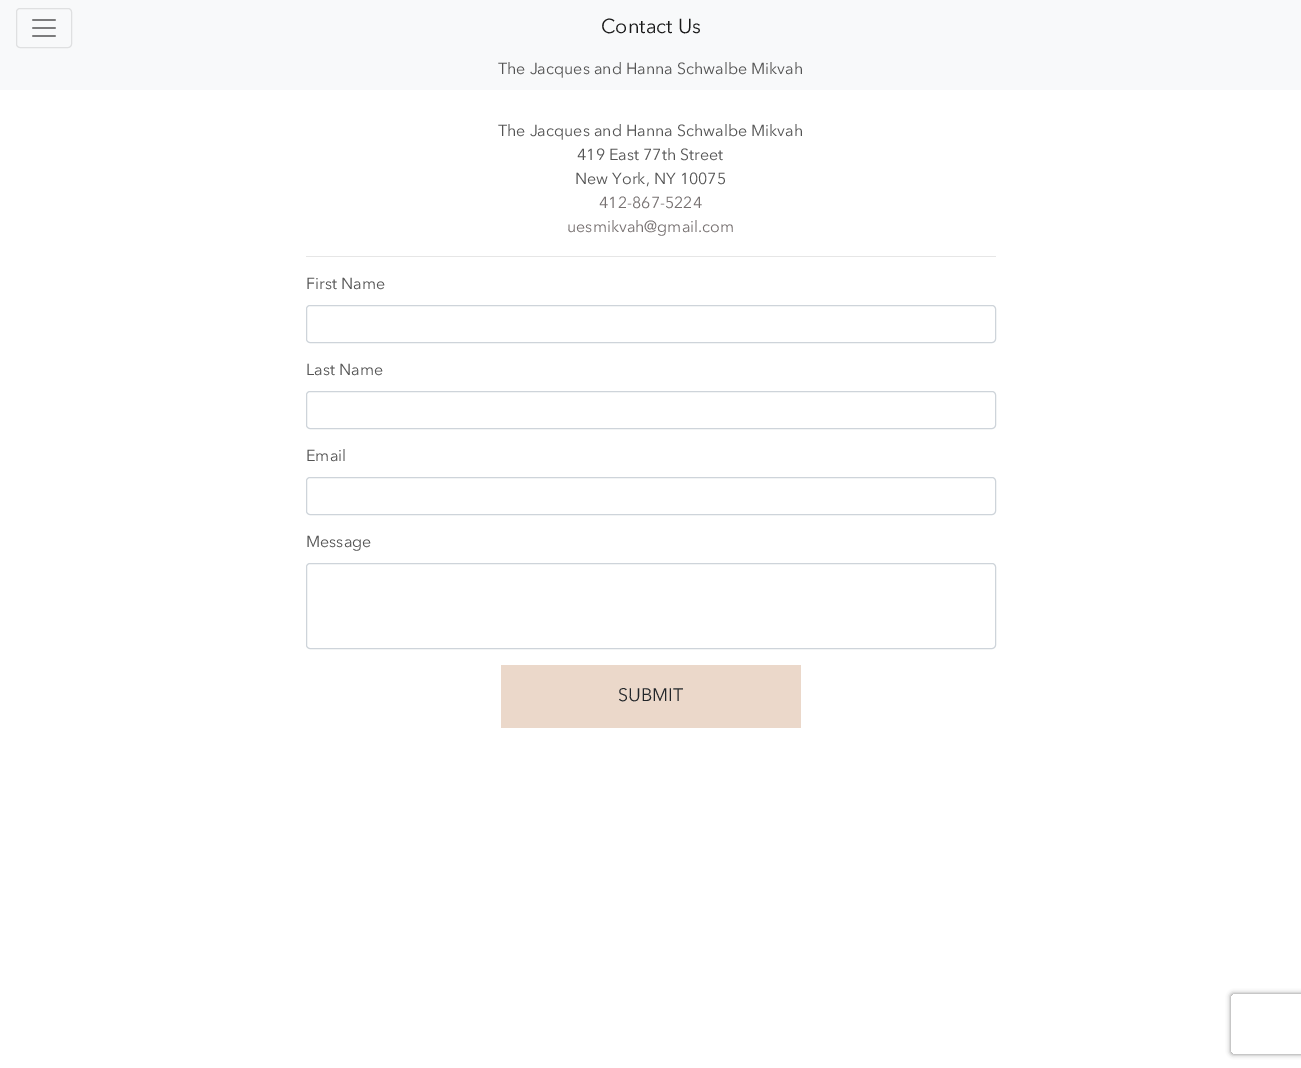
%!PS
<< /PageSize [1301 1068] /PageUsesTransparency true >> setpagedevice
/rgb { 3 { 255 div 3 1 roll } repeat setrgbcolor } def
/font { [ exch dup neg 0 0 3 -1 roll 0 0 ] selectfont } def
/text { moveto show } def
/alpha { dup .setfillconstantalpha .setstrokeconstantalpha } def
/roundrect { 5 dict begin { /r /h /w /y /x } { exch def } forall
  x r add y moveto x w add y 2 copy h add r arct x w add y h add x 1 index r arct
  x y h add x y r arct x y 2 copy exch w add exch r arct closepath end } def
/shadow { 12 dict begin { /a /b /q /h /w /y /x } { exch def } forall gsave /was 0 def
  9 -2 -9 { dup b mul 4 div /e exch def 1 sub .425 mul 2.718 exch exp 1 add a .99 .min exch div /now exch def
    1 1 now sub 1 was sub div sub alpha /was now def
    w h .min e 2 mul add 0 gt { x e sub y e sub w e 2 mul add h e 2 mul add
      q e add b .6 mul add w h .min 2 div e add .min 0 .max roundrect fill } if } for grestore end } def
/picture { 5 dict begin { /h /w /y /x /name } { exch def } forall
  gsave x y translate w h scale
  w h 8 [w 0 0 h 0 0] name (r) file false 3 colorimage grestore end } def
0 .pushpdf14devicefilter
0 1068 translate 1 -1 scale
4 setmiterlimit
255 255 255 rgb
0 0 1301 1068 rectfill
248 249 250 rgb
0 0 1301 90 rectfill
223 224 225 rgb
16.5 8.5 55 39 3.5 roundrect stroke
(img_01.rgb) 32 19 24 18 picture
230 230 230 rgb
306 256 690 1 rectfill
206 212 218 rgb
306.5 305.5 689 37 3.5 roundrect stroke
306.5 391.5 689 37 3.5 roundrect stroke
306.5 477.5 689 37 3.5 roundrect stroke
306.5 563.5 689 85 3.5 roundrect stroke
235 216 202 rgb
501 665 300 63 rectfill
gsave
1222 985 moveto 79 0 rlineto 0 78 rlineto -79 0 rlineto closepath 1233 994 moveto 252 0 rlineto 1 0 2 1 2 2 rcurveto 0 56 rlineto 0 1 -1 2 -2 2 rcurveto -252 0 rlineto -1 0 -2 -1 -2 -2 rcurveto 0 -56 rlineto 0 -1 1 -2 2 -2 rcurveto closepath eoclip newpath
128 128 128 rgb
1231 994 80 60 2 2.5 1 shadow
grestore
/AvenirNext-Regular 20 font
25 25 25 rgb
(Contact Us) 601 33 text
/AvenirNext-Regular 16 font
84 84 84 rgb
(The Jacques and Hanna Schwalbe Mikvah) 498 74 text
(The Jacques and Hanna Schwalbe Mikvah) 498 136 text
(419 East 77th Street) 577 160 text
(New York, NY 10075) 575 184 text
119 113 113 rgb
(412-867-5224) 599 208 text
(uesmikvah@gmail.com) 567 232 text
84 84 84 rgb
(First Name) 306 289 text
(Last Name) 306 375 text
(Email) 306 461 text
(Message) 306 547 text
/AvenirNext-Regular 18 font
33 37 41 rgb
(SUBMIT) 618 701 text
.poppdf14devicefilter showpage
